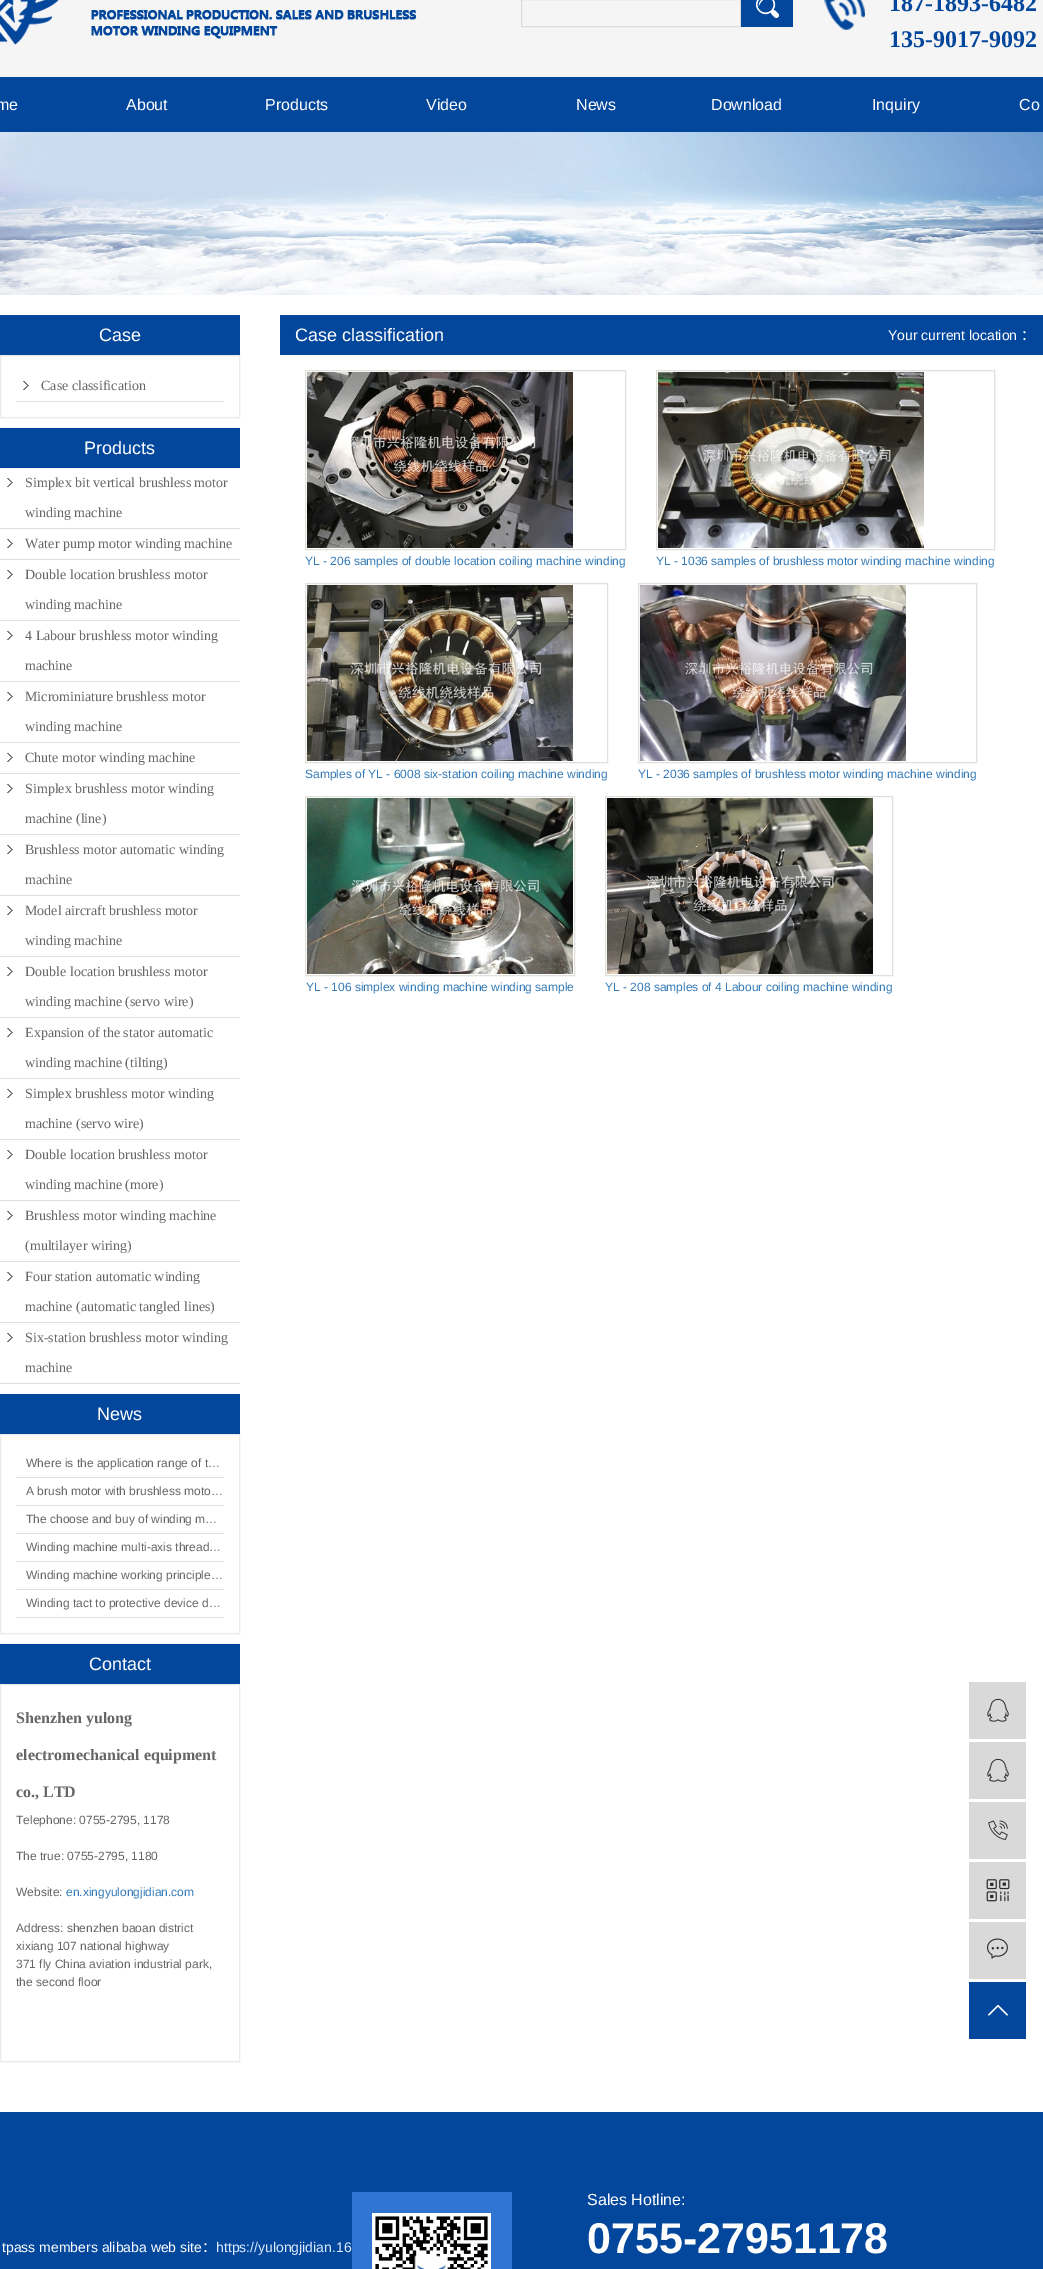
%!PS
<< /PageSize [1043 2269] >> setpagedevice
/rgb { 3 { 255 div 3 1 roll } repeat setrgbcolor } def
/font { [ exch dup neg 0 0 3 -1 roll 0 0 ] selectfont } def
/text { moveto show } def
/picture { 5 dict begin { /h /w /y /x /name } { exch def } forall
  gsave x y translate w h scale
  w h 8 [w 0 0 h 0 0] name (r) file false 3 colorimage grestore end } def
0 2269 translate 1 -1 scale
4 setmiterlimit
255 255 255 rgb
0 0 1043 2269 rectfill
245 245 245 rgb
0 0 1043 77 rectfill
(img_01.rgb) 0 0 417 45 picture
219 219 219 rgb
521.5 -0.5 219 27 rectstroke
(img_02.rgb) 741 0 52 27 picture
(img_03.rgb) 824 0 41 30 picture
3 71 156 rgb
0 77 1043 55 rectfill
(img_04.rgb) 0 132 1043 163 picture
0 315 240 40 rectfill
235 235 235 rgb
0.5 355.5 239 62 rectstroke
(img_05.rgb) 23 381 6 9 picture
221 221 221 rgb
16 401 208 1 rectfill
3 71 156 rgb
0 428 240 40 rectfill
(img_05.rgb) 7 478 6 9 picture
221 221 221 rgb
0 528 240 1 rectfill
(img_05.rgb) 7 539 6 9 picture
0 559 240 1 rectfill
(img_05.rgb) 7 570 6 9 picture
0 620 240 1 rectfill
(img_05.rgb) 7 631 6 9 picture
0 681 240 1 rectfill
(img_05.rgb) 7 692 6 9 picture
0 742 240 1 rectfill
(img_05.rgb) 7 753 6 9 picture
0 773 240 1 rectfill
(img_05.rgb) 7 784 6 9 picture
0 834 240 1 rectfill
(img_05.rgb) 7 845 6 9 picture
0 895 240 1 rectfill
(img_05.rgb) 7 906 6 9 picture
0 956 240 1 rectfill
(img_05.rgb) 7 967 6 9 picture
0 1017 240 1 rectfill
(img_05.rgb) 7 1028 6 9 picture
0 1078 240 1 rectfill
(img_05.rgb) 7 1089 6 9 picture
0 1139 240 1 rectfill
(img_05.rgb) 7 1150 6 9 picture
0 1200 240 1 rectfill
(img_05.rgb) 7 1211 6 9 picture
0 1261 240 1 rectfill
(img_05.rgb) 7 1272 6 9 picture
0 1322 240 1 rectfill
(img_05.rgb) 7 1333 6 9 picture
0 1383 240 1 rectfill
3 71 156 rgb
0 1394 240 40 rectfill
235 235 235 rgb
0.5 1434.5 239 199 rectstroke
221 221 221 rgb
16 1477 208 1 rectfill
16 1505 208 1 rectfill
16 1533 208 1 rectfill
16 1561 208 1 rectfill
16 1589 208 1 rectfill
16 1617 208 1 rectfill
3 71 156 rgb
0 1644 240 40 rectfill
235 235 235 rgb
0.5 1684.5 239 377 rectstroke
3 71 156 rgb
280 315 763 40 rectfill
224 225 220 rgb
305.5 370.5 320 179 rectstroke
(img_06.rgb) 307 372 266 176 picture
656.5 370.5 338 179 rectstroke
(img_07.rgb) 658 372 266 176 picture
305.5 583.5 302 179 rectstroke
(img_08.rgb) 307 585 266 176 picture
638.5 583.5 338 179 rectstroke
(img_09.rgb) 640 585 266 176 picture
305.5 796.5 269 179 rectstroke
(img_10.rgb) 307 798 266 176 picture
605.5 796.5 287 179 rectstroke
(img_11.rgb) 607 798 266 176 picture
217 217 217 rgb
969 1682 57 57 rectfill
(img_12.rgb) 987 1698 22 24 picture
969 1742 57 57 rectfill
(img_12.rgb) 987 1758 22 24 picture
969 1802 57 57 rectfill
(img_13.rgb) 988 1820 20 20 picture
969 1862 57 57 rectfill
(img_14.rgb) 986 1879 24 23 picture
969 1922 57 57 rectfill
(img_15.rgb) 986 1938 22 21 picture
3 71 156 rgb
969 1982 57 57 rectfill
(img_16.rgb) 988 2004 20 12 picture
0 2112 1043 157 rectfill
47 117 209 rgb
352 2192 160 77 rectfill
(img_17.rgb) 372 2213 119 56 picture
/LiberationSerif-Bold 24 font
3 71 156 rgb
(187-1893-6482) 889 11 text
(135-9017-9092) 889 47 text
/LiberationSans-Regular 16 font
255 255 255 rgb
(me) -4 110 text
(About) 126 110 text
(Products) 265 110 text
(Video) 426 110 text
(News) 576 110 text
(Download) 711 110 text
(Inquiry) 872 110 text
(Co) 1019 110 text
/LiberationSans-Regular 18 font
(Case) 99 341 text
/LiberationSerif-Regular 14 font
102 102 102 rgb
(Case classification) 41 390 text
/LiberationSans-Regular 18 font
255 255 255 rgb
(Products) 84 454 text
/LiberationSerif-Regular 14 font
102 102 102 rgb
(Simplex bit vertical brushless motor) 25 487 text
(winding machine) 25 517 text
(Water pump motor winding machine) 25 548 text
(Double location brushless motor) 25 579 text
(winding machine) 25 609 text
(4 Labour brushless motor winding) 25 640 text
(machine) 25 670 text
(Microminiature brushless motor) 25 701 text
(winding machine) 25 731 text
(Chute motor winding machine) 25 762 text
(Simplex brushless motor winding) 25 793 text
(machine \(line\)) 25 823 text
(Brushless motor automatic winding) 25 854 text
(machine) 25 884 text
(Model aircraft brushless motor) 25 915 text
(winding machine) 25 945 text
(Double location brushless motor) 25 976 text
(winding machine \(servo wire\)) 25 1006 text
(Expansion of the stator automatic) 25 1037 text
(winding machine \(tilting\)) 25 1067 text
(Simplex brushless motor winding) 25 1098 text
(machine \(servo wire\)) 25 1128 text
(Double location brushless motor) 25 1159 text
(winding machine \(more\)) 25 1189 text
(Brushless motor winding machine) 25 1220 text
(\(multilayer wiring\)) 25 1250 text
(Four station automatic winding) 25 1281 text
(machine \(automatic tangled lines\)) 25 1311 text
(Six-station brushless motor winding) 25 1342 text
(machine) 25 1372 text
/LiberationSans-Regular 18 font
255 255 255 rgb
(News) 97 1420 text
/LiberationSans-Regular 12 font
102 102 102 rgb
(Where is the application range of t…) 26 1467 text
(A brush motor with brushless moto…) 26 1495 text
(The choose and buy of winding m…) 26 1523 text
(Winding machine multi-axis thread…) 26 1551 text
(Winding machine working principle…) 26 1579 text
(Winding tact to protective device d…) 26 1607 text
/LiberationSans-Regular 18 font
255 255 255 rgb
(Contact) 89 1670 text
/LiberationSerif-Bold 16 font
102 102 102 rgb
(Shenzhen yulong) 16 1723 text
(electromechanical equipment) 16 1760 text
(co., LTD) 16 1797 text
/LiberationSans-Regular 12 font
(Telephone: 0755-2795, 1178) 16 1824 text
(The true: 0755-2795, 1180) 16 1860 text
(Website:) 16 1896 text
51 122 183 rgb
(en.xingyulongjidian.com) 66 1896 text
102 102 102 rgb
(Address: shenzhen baoan district) 16 1932 text
(xixiang 107 national highway) 16 1950 text
(371 fly China aviation industrial park,) 16 1968 text
(the second floor) 16 1986 text
/LiberationSans-Regular 18 font
255 255 255 rgb
(Case classification) 295 341 text
/LiberationSans-Regular 14 font
(Your current location) 888 340 text
/NotoSansCJKSC-Regular 14 font
(：) 1021 340 text
/LiberationSans-Regular 12 font
51 122 183 rgb
(YL - 206 samples of double location coiling machine winding) 305 565 text
(YL - 1036 samples of brushless motor winding machine winding) 656 565 text
(Samples of YL - 6008 six-station coiling machine winding) 305 778 text
(YL - 2036 samples of brushless motor winding machine winding) 638 778 text
(YL - 106 simplex winding machine winding sample) 306 991 text
(YL - 208 samples of 4 Labour coiling machine winding) 605 991 text
/LiberationSans-Regular 14 font
255 255 255 rgb
(tpass members alibaba web site) 2 2252 text
/NotoSansCJKSC-Regular 14 font
(：) 202 2252 text
/LiberationSans-Regular 14 font
222 236 255 rgb
(https://yulongjidian.16) 216 2252 text
/LiberationSans-Regular 16 font
255 255 255 rgb
(Sales Hotline:) 587 2205 text
/LiberationSans-Bold 43 font
(0755-27951178) 587 2253 text
showpage
